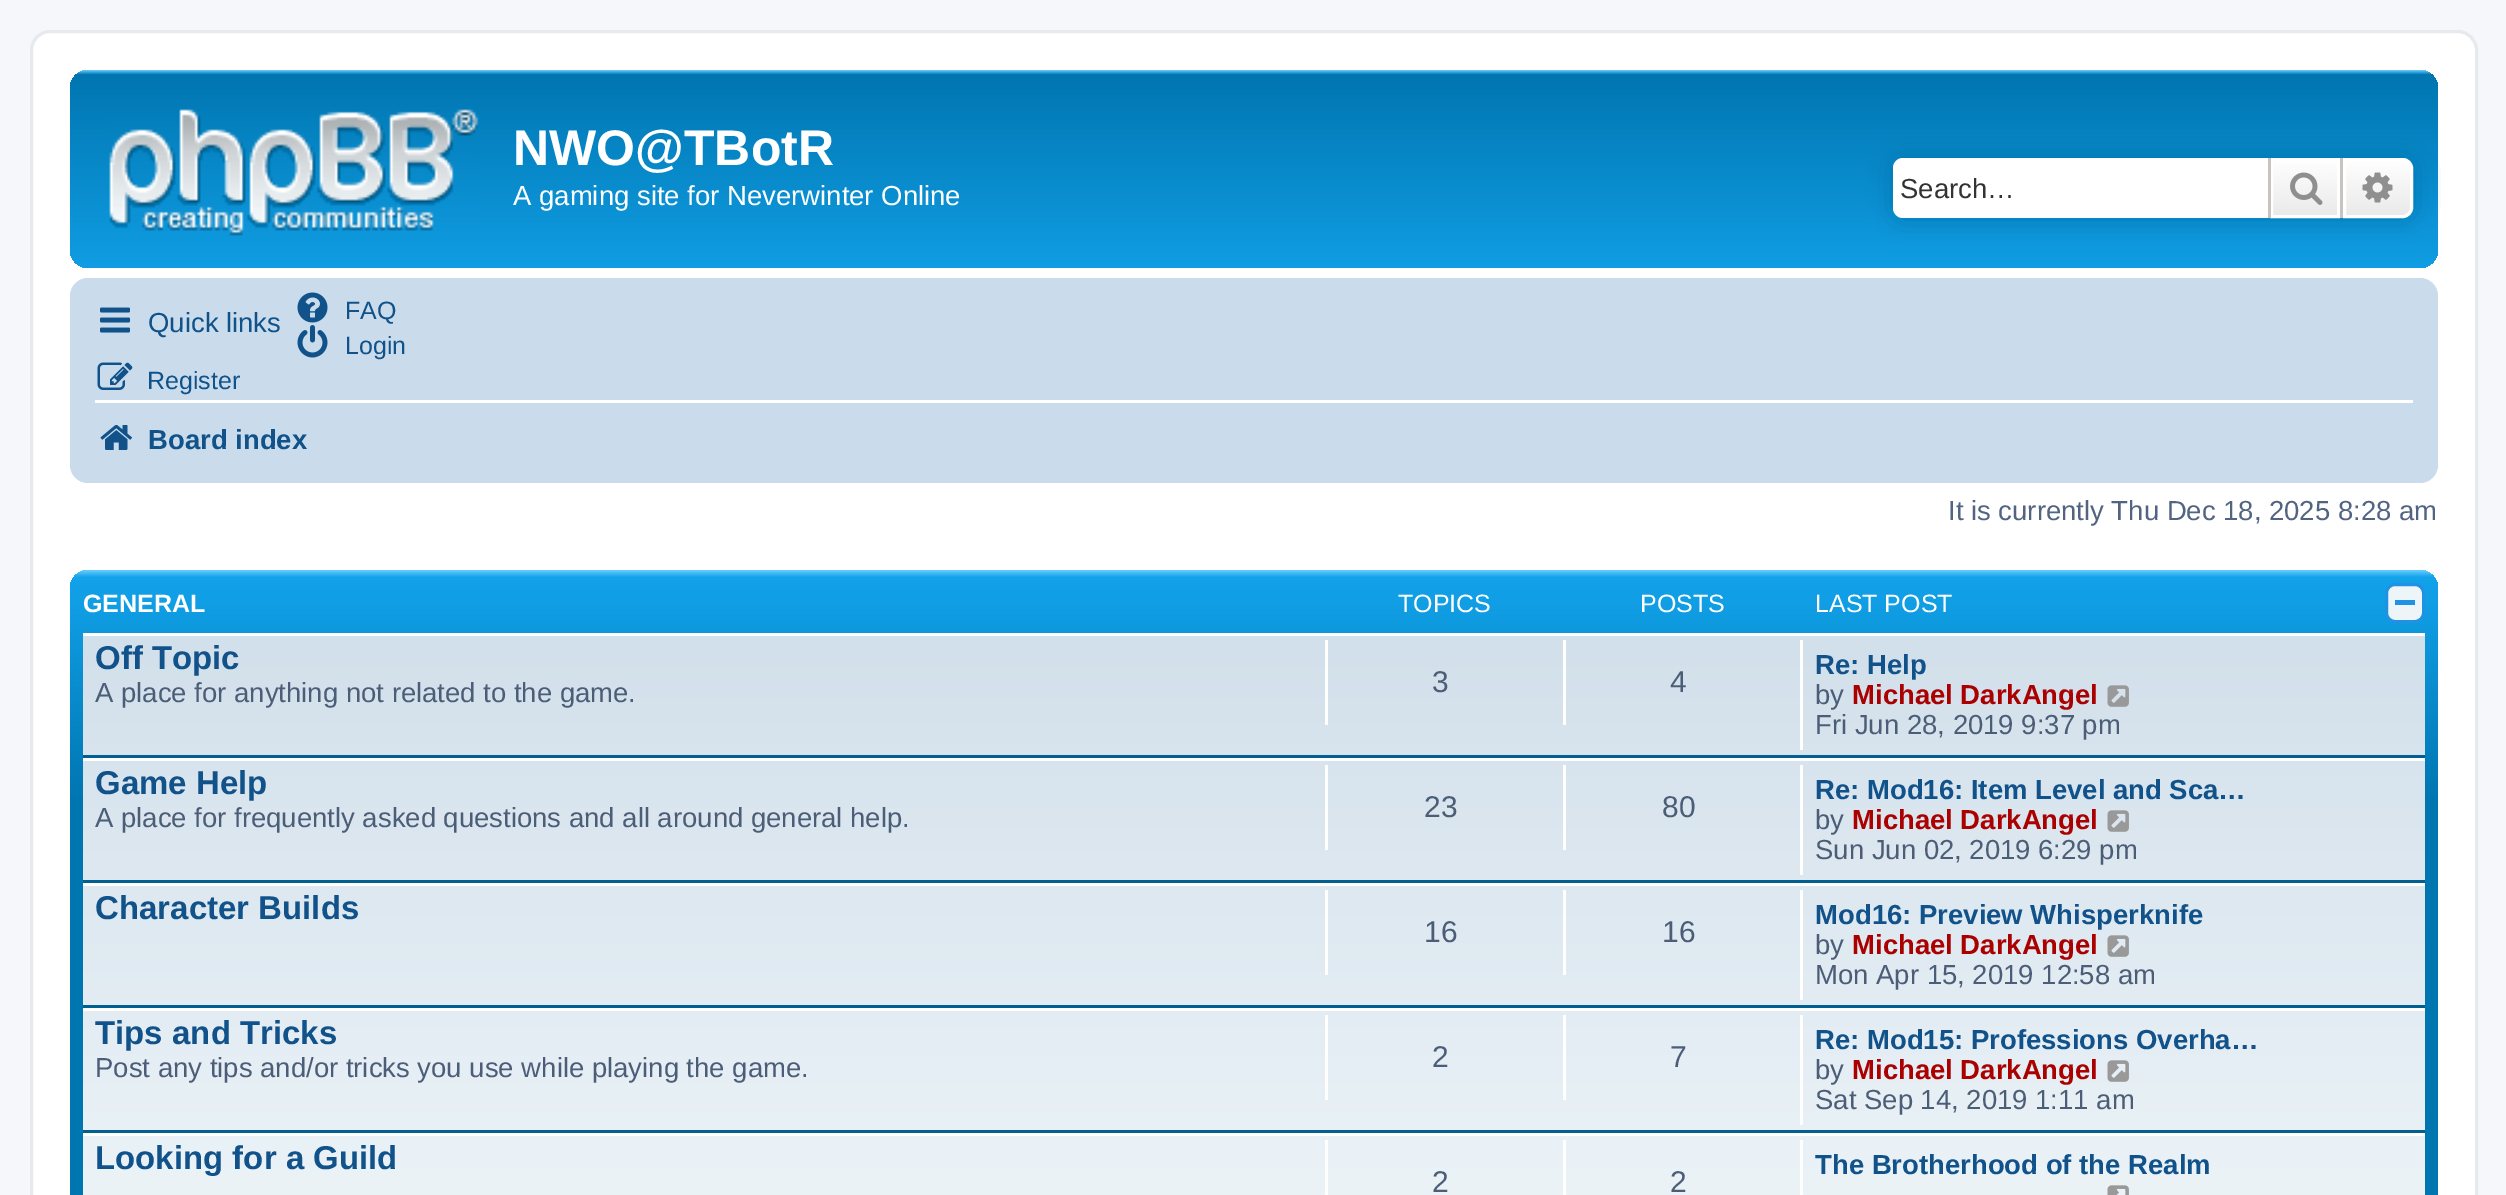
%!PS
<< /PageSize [2506 1195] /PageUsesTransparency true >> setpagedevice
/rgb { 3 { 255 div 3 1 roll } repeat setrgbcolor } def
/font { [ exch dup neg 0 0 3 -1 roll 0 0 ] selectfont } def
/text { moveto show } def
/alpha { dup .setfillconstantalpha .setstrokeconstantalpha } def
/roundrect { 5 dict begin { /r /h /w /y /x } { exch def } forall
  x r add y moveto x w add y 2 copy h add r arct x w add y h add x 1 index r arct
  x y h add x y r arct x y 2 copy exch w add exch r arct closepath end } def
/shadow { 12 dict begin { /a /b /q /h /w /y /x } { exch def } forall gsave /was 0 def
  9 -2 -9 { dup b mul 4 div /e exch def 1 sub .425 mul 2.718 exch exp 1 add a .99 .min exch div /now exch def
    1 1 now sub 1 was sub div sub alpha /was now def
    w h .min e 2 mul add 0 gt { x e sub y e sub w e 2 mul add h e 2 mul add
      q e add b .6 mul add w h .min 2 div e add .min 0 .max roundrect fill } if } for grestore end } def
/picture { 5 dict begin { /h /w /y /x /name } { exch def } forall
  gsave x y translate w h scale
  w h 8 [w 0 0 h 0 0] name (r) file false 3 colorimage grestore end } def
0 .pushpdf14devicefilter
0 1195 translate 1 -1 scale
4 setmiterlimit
245 247 250 rgb
0 0 2506 1195 rectfill
255 255 255 rgb
31.5 31.5 2445 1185 18.5 roundrect gsave fill grestore
230 233 237 rgb
3 setlinewidth
stroke
gsave 70 70 2368 198 18 roundrect clip newpath
<< /ShadingType 2 /ColorSpace /DeviceRGB /Coords [1254 70 1254 300] /Extend [true true] /Function << /FunctionType 3 /Domain [0 1] /Functions [<< /FunctionType 2 /Domain [0 1] /C0 [0.416 0.808 1] /C1 [0 0.463 0.694] /N 1 >> << /FunctionType 2 /Domain [0 1] /C0 [0 0.463 0.694] /C1 [0.071 0.639 0.922] /N 1 >>] /Bounds [0.02] /Encode [0 1 0 1] >> >> shfill grestore
(img_01.rgb) 109 109 370 127 picture
0 117 176 rgb
1893 158 520 60 10 12.5 1 shadow
255 255 255 rgb
1903 158 moveto 365 0 rlineto 0 60 rlineto -365 0 rlineto -5.5 0 -10 -4.5 -10 -10 rcurveto 0 -40 rlineto 0 -5.5 4.5 -10 10 -10 rcurveto closepath fill
gsave 2273 161 moveto 64 0 rlineto 0 54 rlineto -64 0 rlineto closepath clip newpath
<< /ShadingType 2 /ColorSpace /DeviceRGB /Coords [2305 158 2305 218] /Extend [true true] /Function << /FunctionType 2 /Domain [0 1] /C0 [1 1 1] /C1 [0.914 0.914 0.914] /N 1 >> >> shfill grestore
2271.5 159.5 67 57 rectstroke
199 195 191 rgb
2340 158 3 60 rectfill
2268 158 3 60 rectfill
(img_02.rgb) 2290 172 33 33 picture
gsave 2344.5 159.5 moveto 58.5 0 rlineto 4.5 0 8.5 4 8.5 8.5 rcurveto 0 40 rlineto 0 4.5 -4 8.5 -8.5 8.5 rcurveto -58.5 0 rlineto closepath clip newpath
<< /ShadingType 2 /ColorSpace /DeviceRGB /Coords [2378 158 2378 218] /Extend [true true] /Function << /FunctionType 2 /Domain [0 1] /C0 [1 1 1] /C1 [0.914 0.914 0.914] /N 1 >> >> shfill grestore
255 255 255 rgb
2344.5 159.5 moveto 58.5 0 rlineto 4.5 0 8.5 4 8.5 8.5 rcurveto 0 40 rlineto 0 4.5 -4 8.5 -8.5 8.5 rcurveto -58.5 0 rlineto closepath stroke
(img_03.rgb) 2362 172 31 31 picture
202 220 235 rgb
70 278 2368 205 18 roundrect fill
(img_04.rgb) 297 292 31 31 picture
(img_05.rgb) 297 325 31 33 picture
(img_06.rgb) 97 362 36 28 picture
(img_07.rgb) 100 307 30 26 picture
255 255 255 rgb
95 400 2318 3 rectfill
(img_08.rgb) 100 424 32 26 picture
gsave 70 570 2368 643 18 roundrect clip newpath
<< /ShadingType 2 /ColorSpace /DeviceRGB /Coords [1254 570 1254 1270] /Extend [true true] /Function << /FunctionType 3 /Domain [0 1] /Functions [<< /FunctionType 2 /Domain [0 1] /C0 [0.416 0.808 1] /C1 [0.071 0.639 0.922] /N 1 >> << /FunctionType 2 /Domain [0 1] /C0 [0.071 0.639 0.922] /C1 [0 0.463 0.694] /N 1 >> << /FunctionType 2 /Domain [0 1] /C0 [0 0.463 0.694] /C1 [0 0.463 0.694] /N 1 >>] /Bounds [0.01 0.33] /Encode [0 1 0 1 0 1] >> >> shfill grestore
238 245 249 rgb
2386.5 584.5 37 37 8.5 roundrect gsave fill grestore
32 146 227 rgb
stroke
2395 600 20 5 rectfill
gsave 83 636 moveto 2342 0 rlineto 0 559 rlineto -2342 0 rlineto closepath clip newpath
<< /ShadingType 2 /ColorSpace /DeviceRGB /Coords [1254 632 1254 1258] /Extend [true true] /Function << /FunctionType 2 /Domain [0 1] /C0 [0.824 0.878 0.922] /C1 [0.933 0.961 0.976] /N 1 >> >> shfill grestore
255 255 255 rgb
83 633 2342 3 rectfill
0 96 143 rgb
83 755 2342 3 rectfill
255 255 255 rgb
1325 640 3 85 rectfill
1563 640 3 85 rectfill
1800 640 3 110 rectfill
(img_09.rgb) 2107 685 22 22 picture
83 758 2342 3 rectfill
0 96 143 rgb
83 880 2342 3 rectfill
255 255 255 rgb
1325 765 3 85 rectfill
1563 765 3 85 rectfill
1800 765 3 110 rectfill
(img_10.rgb) 2107 810 22 22 picture
83 883 2342 3 rectfill
0 96 143 rgb
83 1005 2342 3 rectfill
255 255 255 rgb
1325 890 3 85 rectfill
1563 890 3 85 rectfill
1800 890 3 110 rectfill
(img_11.rgb) 2107 935 22 22 picture
83 1008 2342 3 rectfill
0 96 143 rgb
83 1130 2342 3 rectfill
255 255 255 rgb
1325 1015 3 85 rectfill
1563 1015 3 85 rectfill
1800 1015 3 110 rectfill
(img_12.rgb) 2107 1060 22 22 picture
83 1133 2342 3 rectfill
1800 1140 3 55 rectfill
(img_13.rgb) 2107 1185 22 10 picture
1325 1140 3 55 rectfill
1563 1140 3 55 rectfill
/LiberationSans-Bold 50 font
(NWO@TBotR) 513 165 text
/LiberationSans-Regular 27.5 font
(A gaming site for Neverwinter Online) 513 205 text
51 51 51 rgb
(Search…) 1900 198 text
/LiberationSans-Regular 25 font
16 82 137 rgb
(FAQ) 345 319 text
(Login) 345 354 text
(Register) 147 389 text
/LiberationSans-Regular 27.5 font
(Quick links) 148 332 text
/LiberationSans-Bold 27.5 font
(Board index) 148 449 text
/LiberationSans-Regular 27.5 font
83 100 130 rgb
(It is currently Thu Dec 18, 2025 8:28 am) 1948 520 text
/LiberationSans-Bold 25 font
255 255 255 rgb
(GENERAL) 83 612 text
/LiberationSans-Regular 25 font
(TOPICS) 1398 612 text
(POSTS) 1640 612 text
(LAST POST) 1815 612 text
/LiberationSans-Bold 33 font
16 82 137 rgb
(Off Topic) 95 669 text
/LiberationSans-Regular 27.5 font
76 93 119 rgb
(A place for anything not related to the game.) 95 702 text
/LiberationSans-Regular 30 font
(3) 1432 692 text
(4) 1670 692 text
/LiberationSans-Bold 27.5 font
16 82 137 rgb
(Re: Help) 1815 674 text
/LiberationSans-Regular 27.5 font
76 93 119 rgb
(by) 1815 704 text
/LiberationSans-Bold 27.5 font
170 0 0 rgb
(Michael DarkAngel) 1852 704 text
/LiberationSans-Regular 27.5 font
76 93 119 rgb
(Fri Jun 28, 2019 9:37 pm) 1815 734 text
/LiberationSans-Bold 33 font
16 82 137 rgb
(Game Help) 95 794 text
/LiberationSans-Regular 27.5 font
76 93 119 rgb
(A place for frequently asked questions and all around general help.) 95 827 text
/LiberationSans-Regular 30 font
(23) 1424 817 text
(80) 1662 817 text
/LiberationSans-Bold 27.5 font
16 82 137 rgb
(Re: Mod16: Item Level and Sca…) 1815 799 text
/LiberationSans-Regular 27.5 font
76 93 119 rgb
(by) 1815 829 text
/LiberationSans-Bold 27.5 font
170 0 0 rgb
(Michael DarkAngel) 1852 829 text
/LiberationSans-Regular 27.5 font
76 93 119 rgb
(Sun Jun 02, 2019 6:29 pm) 1815 859 text
/LiberationSans-Bold 33 font
16 82 137 rgb
(Character Builds) 95 919 text
/LiberationSans-Regular 30 font
76 93 119 rgb
(16) 1424 942 text
(16) 1662 942 text
/LiberationSans-Bold 27.5 font
16 82 137 rgb
(Mod16: Preview Whisperknife) 1815 924 text
/LiberationSans-Regular 27.5 font
76 93 119 rgb
(by) 1815 954 text
/LiberationSans-Bold 27.5 font
170 0 0 rgb
(Michael DarkAngel) 1852 954 text
/LiberationSans-Regular 27.5 font
76 93 119 rgb
(Mon Apr 15, 2019 12:58 am) 1815 984 text
/LiberationSans-Bold 33 font
16 82 137 rgb
(Tips and Tricks) 95 1044 text
/LiberationSans-Regular 27.5 font
76 93 119 rgb
(Post any tips and/or tricks you use while playing the game.) 95 1077 text
/LiberationSans-Regular 30 font
(2) 1432 1067 text
(7) 1670 1067 text
/LiberationSans-Bold 27.5 font
16 82 137 rgb
(Re: Mod15: Professions Overha…) 1815 1049 text
/LiberationSans-Regular 27.5 font
76 93 119 rgb
(by) 1815 1079 text
/LiberationSans-Bold 27.5 font
170 0 0 rgb
(Michael DarkAngel) 1852 1079 text
/LiberationSans-Regular 27.5 font
76 93 119 rgb
(Sat Sep 14, 2019 1:11 am) 1815 1109 text
/LiberationSans-Bold 33 font
16 82 137 rgb
(Looking for a Guild) 95 1169 text
/LiberationSans-Bold 27.5 font
(The Brotherhood of the Realm) 1815 1174 text
/LiberationSans-Regular 30 font
76 93 119 rgb
(2) 1432 1192 text
(2) 1670 1192 text
.poppdf14devicefilter showpage
